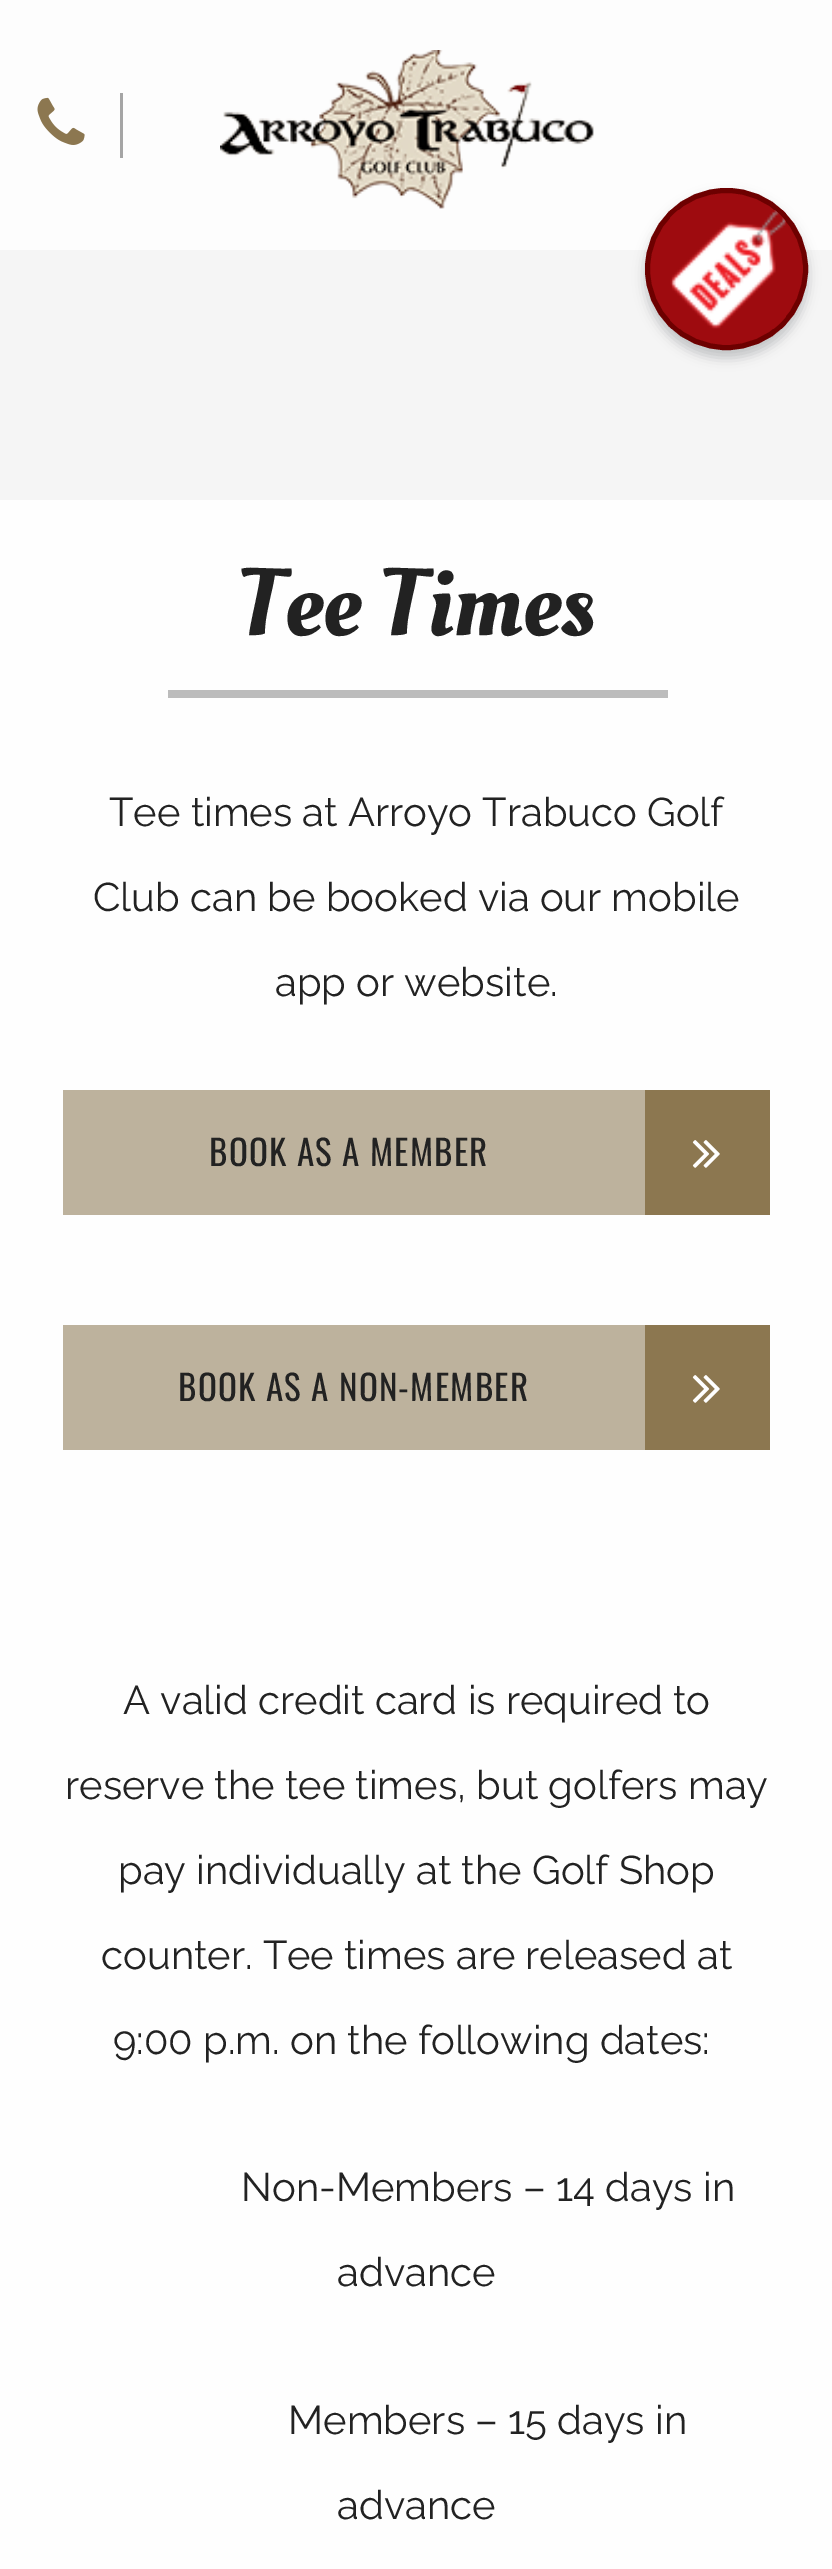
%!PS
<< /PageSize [832 2569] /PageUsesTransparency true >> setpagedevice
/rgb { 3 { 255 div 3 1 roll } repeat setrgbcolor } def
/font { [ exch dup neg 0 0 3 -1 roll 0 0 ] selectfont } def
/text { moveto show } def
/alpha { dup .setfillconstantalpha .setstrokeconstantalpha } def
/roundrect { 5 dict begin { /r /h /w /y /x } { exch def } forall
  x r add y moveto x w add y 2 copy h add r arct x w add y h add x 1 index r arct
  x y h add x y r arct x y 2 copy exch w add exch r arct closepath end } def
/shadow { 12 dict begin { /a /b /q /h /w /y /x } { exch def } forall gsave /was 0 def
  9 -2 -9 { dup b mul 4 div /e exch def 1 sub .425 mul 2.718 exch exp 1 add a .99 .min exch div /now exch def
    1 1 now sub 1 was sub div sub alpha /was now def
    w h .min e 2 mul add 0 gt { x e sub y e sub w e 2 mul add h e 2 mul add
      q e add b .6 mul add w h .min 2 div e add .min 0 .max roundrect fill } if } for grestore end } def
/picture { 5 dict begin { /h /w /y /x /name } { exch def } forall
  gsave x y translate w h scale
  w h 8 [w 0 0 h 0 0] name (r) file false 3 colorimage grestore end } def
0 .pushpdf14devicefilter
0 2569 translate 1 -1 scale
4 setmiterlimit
245 245 245 rgb
0 0 832 2569 rectfill
253 253 253 rgb
0 0 832 250 rectfill
71 75 86 rgb
645 195 163 163 81.5 6 0.3 shadow
158 11 15 rgb
647.5 190.5 158 157 78.5 roundrect gsave fill grestore
109 0 0 rgb
5 setlinewidth
stroke
(img_01.rgb) 670 210 116 119 picture
(img_02.rgb) 37 97 48 48 picture
165 165 165 rgb
120 93 3 65 rectfill
(img_03.rgb) 220 50 374 159 picture
254 254 254 rgb
0 500 832 2069 rectfill
188 188 188 rgb
168 690 500 8 rectfill
189 178 157 rgb
63 1090 582 125 rectfill
140 119 80 rgb
645 1090 125 125 rectfill
(img_04.rgb) 692 1140 28 28 picture
189 178 157 rgb
63 1325 582 125 rectfill
140 119 80 rgb
645 1325 125 125 rectfill
(img_04.rgb) 692 1375 28 28 picture
/OleoScript-Regular 95 font
34 34 34 rgb
(Tee Times) 238 635 text
/Raleway-Regular 40 font
(Tee times at Arroyo Trabuco Golf) 109 826 text
(Club can be booked via our mobile) 93 911 text
(app or website.) 275 996 text
/Oswald-Regular 35 font
209 1166 moveto 1.25 0 (BOOK AS A MEMBER) ashow
178 1401 moveto 1.25 0 (BOOK AS A NON-MEMBER) ashow
/Raleway-Regular 40 font
(A valid credit card is required to) 123 1714 text
(reserve the tee times, but golfers may) 65 1799 text
(pay individually at the Golf Shop) 118 1884 text
(counter. Tee times are released at) 101 1969 text
(9:00 p.m. on the following dates:) 113 2054 text
(Non-Members – 14 days in) 241 2201 text
(advance) 337 2286 text
(Members – 15 days in) 288 2434 text
(advance) 337 2519 text
.poppdf14devicefilter showpage
